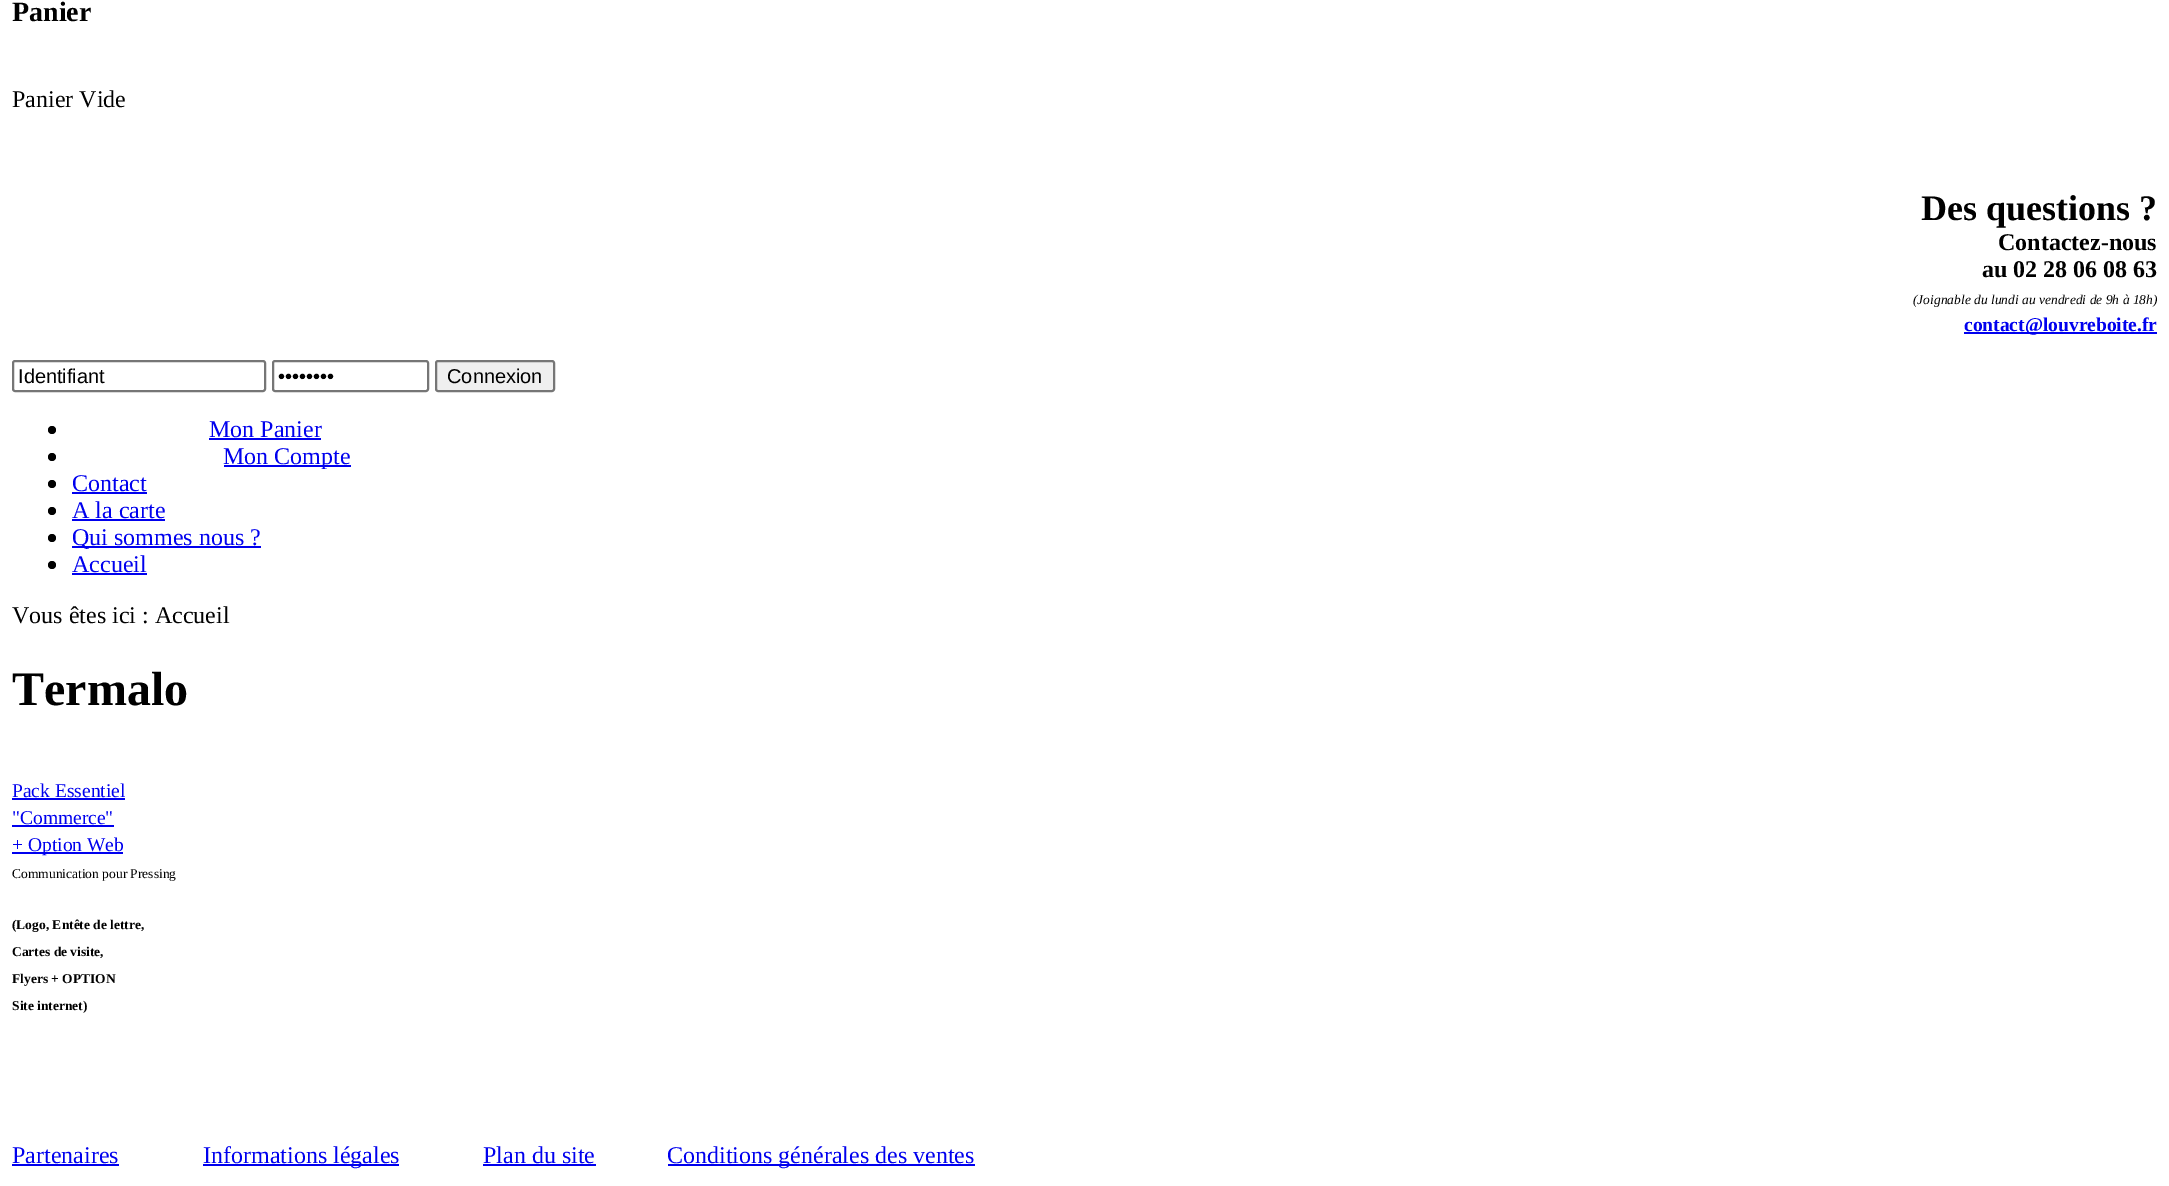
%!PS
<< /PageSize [2169 1186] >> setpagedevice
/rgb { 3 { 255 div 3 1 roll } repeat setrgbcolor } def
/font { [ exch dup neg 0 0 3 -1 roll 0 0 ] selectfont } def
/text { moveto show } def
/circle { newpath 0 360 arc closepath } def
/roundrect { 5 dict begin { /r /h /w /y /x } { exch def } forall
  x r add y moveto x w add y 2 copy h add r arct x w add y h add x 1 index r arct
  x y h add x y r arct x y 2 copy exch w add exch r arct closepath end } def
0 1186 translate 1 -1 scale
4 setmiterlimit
255 255 255 rgb
0 0 2169 1186 rectfill
0 0 238 rgb
1964 332 193 2 rectfill
118 118 118 rgb
2 setlinewidth
13 361 252 30 2 roundrect stroke
273 361 155 30 2 roundrect stroke
239 239 239 rgb
436 361 118 30 2 roundrect gsave fill grestore
118 118 118 rgb
stroke
0 0 0 rgb
52 430 4 circle fill
0 0 238 rgb
209 438 112 2 rectfill
0 0 0 rgb
52 457 4 circle fill
0 0 238 rgb
224 465 127 2 rectfill
0 0 0 rgb
52 484 4 circle fill
0 0 238 rgb
72 492 75 2 rectfill
0 0 0 rgb
52 511 4 circle fill
0 0 238 rgb
72 519 93 2 rectfill
0 0 0 rgb
52 538 4 circle fill
0 0 238 rgb
72 546 189 2 rectfill
0 0 0 rgb
52 565 4 circle fill
0 0 238 rgb
72 573 75 2 rectfill
12 798 113 2 rectfill
12 825 102 2 rectfill
12 852 111 2 rectfill
12 1164 107 2 rectfill
203 1164 196 2 rectfill
483 1164 113 2 rectfill
668 1164 307 2 rectfill
/LiberationSerif-Bold 28 font
0 0 0 rgb
(Panier) 12 21 text
/LiberationSerif-Regular 24 font
(Panier Vide) 12 107 text
/LiberationSerif-Bold 36 font
(Des questions ?) 1921 220 text
/LiberationSerif-Bold 24 font
(Contactez-nous) 1998 250 text
(au 02 28 06 08 63) 1982 277 text
/LiberationSerif-Italic 13.5 font
(\(Joignable du lundi au vendredi de 9h à 18h\)) 1913 304 text
/LiberationSerif-Bold 19.5 font
0 0 238 rgb
(contact@louvreboite.fr) 1964 331 text
/LiberationSans-Regular 20 font
0 0 0 rgb
(Identifiant) 18 383 text
(••••••••) 278 383 text
(Connexion) 447 383 text
/LiberationSerif-Regular 24 font
0 0 238 rgb
(Mon Panier) 209 437 text
(Mon Compte) 223 464 text
(Contact) 72 491 text
(A la carte) 72 518 text
(Qui sommes nous ?) 72 545 text
(Accueil) 72 572 text
0 0 0 rgb
(Vous êtes ici : Accueil) 12 623 text
/LiberationSerif-Bold 48 font
(Termalo) 12 705 text
/LiberationSerif-Regular 19.5 font
0 0 238 rgb
(Pack Essentiel) 12 797 text
("Commerce") 12 824 text
(+ Option Web) 12 851 text
/LiberationSerif-Regular 13.5 font
0 0 0 rgb
(Communication pour Pressing) 12 878 text
/LiberationSerif-Bold 13.5 font
(\(Logo, Entête de lettre,) 12 929 text
(Cartes de visite,) 12 956 text
(Flyers + OPTION) 12 983 text
(Site internet\)) 12 1010 text
/LiberationSerif-Regular 24 font
0 0 238 rgb
(Partenaires) 12 1163 text
(Informations légales) 203 1163 text
(Plan du site) 483 1163 text
(Conditions générales des ventes) 667 1163 text
showpage
